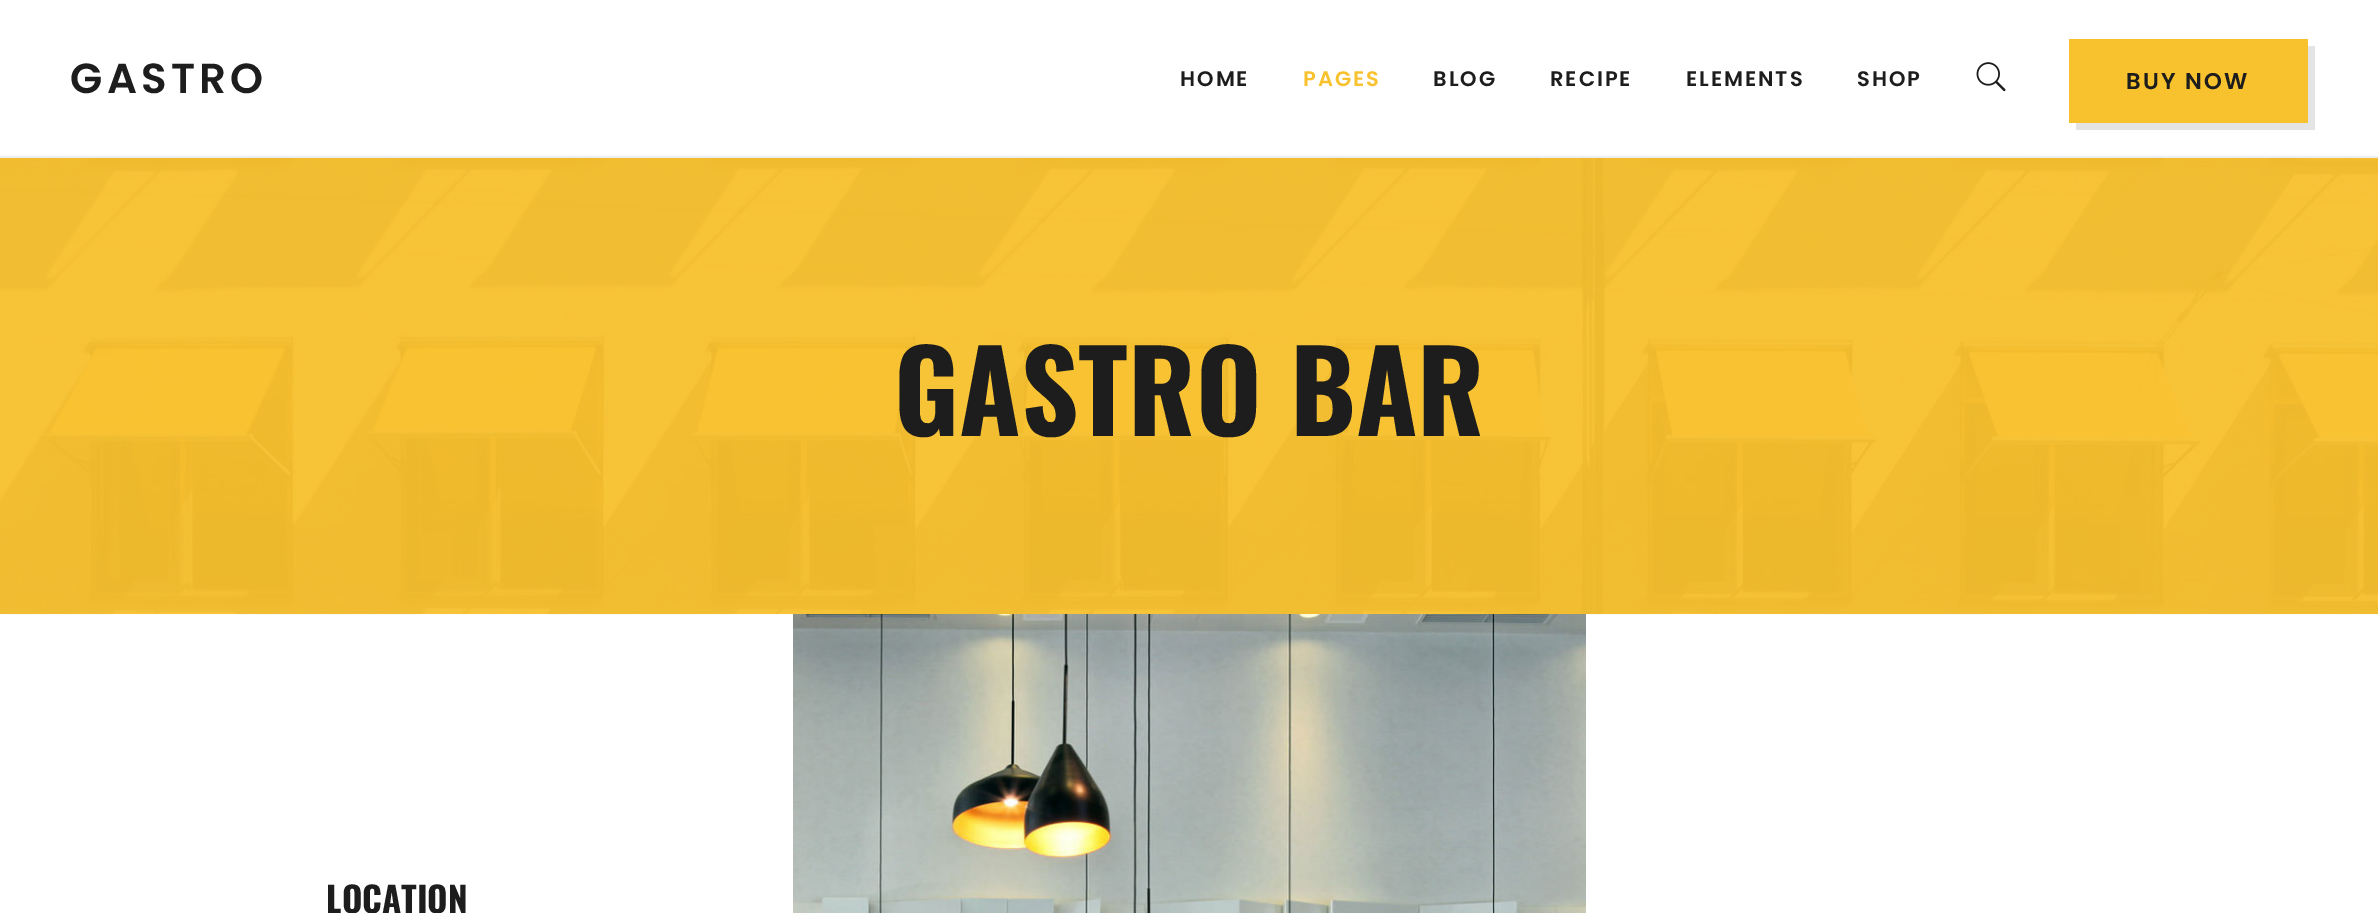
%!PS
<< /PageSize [2378 913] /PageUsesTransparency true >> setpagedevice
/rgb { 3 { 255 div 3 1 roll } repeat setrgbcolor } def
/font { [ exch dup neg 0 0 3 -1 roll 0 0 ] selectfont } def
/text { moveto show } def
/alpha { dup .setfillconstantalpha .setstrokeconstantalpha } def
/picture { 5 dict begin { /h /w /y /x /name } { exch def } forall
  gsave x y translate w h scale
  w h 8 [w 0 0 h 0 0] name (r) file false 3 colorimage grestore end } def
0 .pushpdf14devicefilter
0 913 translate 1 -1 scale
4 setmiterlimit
255 255 255 rgb
0 0 2378 913 rectfill
238 238 238 rgb
0 156 2378 2 rectfill
(img_01.rgb) 1976 62 30 30 picture
228 228 228 rgb
2076 122 moveto 0 8 rlineto 239 0 rlineto 0 -84 rlineto -7 0 rlineto 0 76 rlineto closepath fill
248 193 46 rgb
2069 39 239 84 rectfill
(img_02.rgb) 0 158 2378 457 picture
0.9 alpha
255 255 255 rgb
0 614 2378 1 rectfill
1 alpha
(img_03.rgb) 793 614 793 299 picture
/Poppins-SemiBold 42 font
29 29 29 rgb
70 93 moveto 4.25 0 (GASTRO) ashow
/Poppins-SemiBold 21 font
1180 86 moveto 2 0 (HOME) ashow
248 193 46 rgb
1303 86 moveto 2 0 (PAGES) ashow
29 29 29 rgb
1433 86 moveto 2 0 (BLOG) ashow
1550 86 moveto 2 0 (RECIPE) ashow
1686 86 moveto 2 0 (ELEMENTS) ashow
1857 86 moveto 2 0 (SHOP) ashow
/Poppins-SemiBold 22.75 font
2126 89 moveto 2.25 0 (BUY NOW) ashow
/Oswald-Bold 112 font
(GASTRO BAR) 894 436 text
/Oswald-Bold 35 font
(LOCATION) 326 913 text
.poppdf14devicefilter showpage
